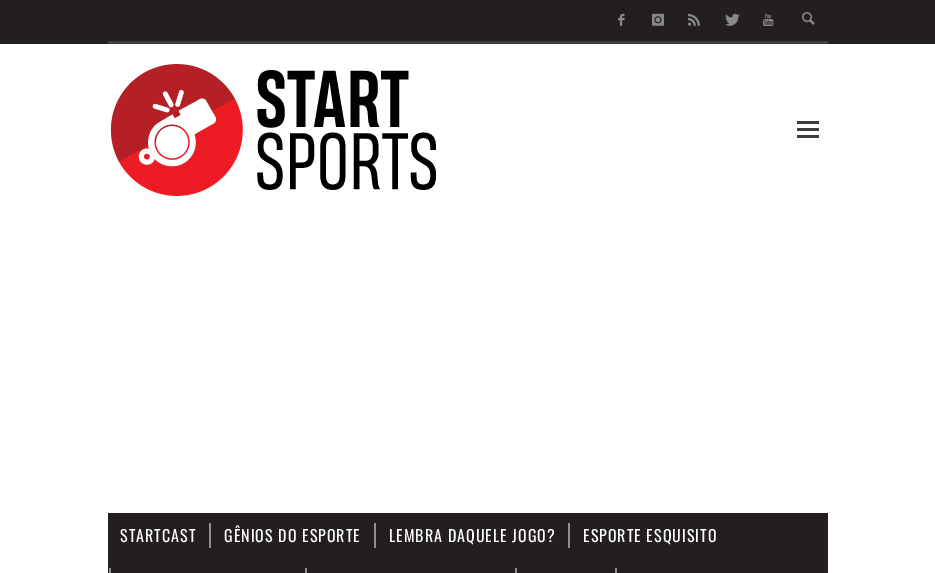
%!PS
<< /PageSize [935 573] >> setpagedevice
/rgb { 3 { 255 div 3 1 roll } repeat setrgbcolor } def
/font { [ exch dup neg 0 0 3 -1 roll 0 0 ] selectfont } def
/picture { 5 dict begin { /h /w /y /x /name } { exch def } forall
  gsave x y translate w h scale
  w h 8 [w 0 0 h 0 0] name (r) file false 3 colorimage grestore end } def
0 573 translate 1 -1 scale
4 setmiterlimit
255 255 255 rgb
0 0 935 573 rectfill
35 31 32 rgb
0 0 935 44 rectfill
62 62 62 rgb
108 41 720 3 rectfill
(img_01.rgb) 618 13 7 13 picture
(img_02.rgb) 652 13 12 13 picture
(img_03.rgb) 688 13 12 13 picture
(img_04.rgb) 725 13 15 13 picture
(img_05.rgb) 763 13 11 13 picture
(img_06.rgb) 802 12 13 13 picture
(img_07.rgb) 110 64 326 132 picture
797 121 22 3 rectfill
797 128 22 3 rectfill
797 135 22 3 rectfill
35 31 32 rgb
108 513 720 60 rectfill
145 143 144 rgb
209 523 2 25 rectfill
374 523 2 25 rectfill
568 523 2 25 rectfill
109 568 2 5 rectfill
305 568 2 5 rectfill
515 568 2 5 rectfill
615 568 2 5 rectfill
/Oswald-Regular 16 font
255 255 255 rgb
120 542 moveto 1 0 (STARTCAST) ashow
224 542 moveto 1 0 (GÊNIOS DO ESPORTE) ashow
389 542 moveto 1 0 (LEMBRA DAQUELE JOGO?) ashow
583 542 moveto 1 0 (ESPORTE ESQUISITO) ashow
showpage
